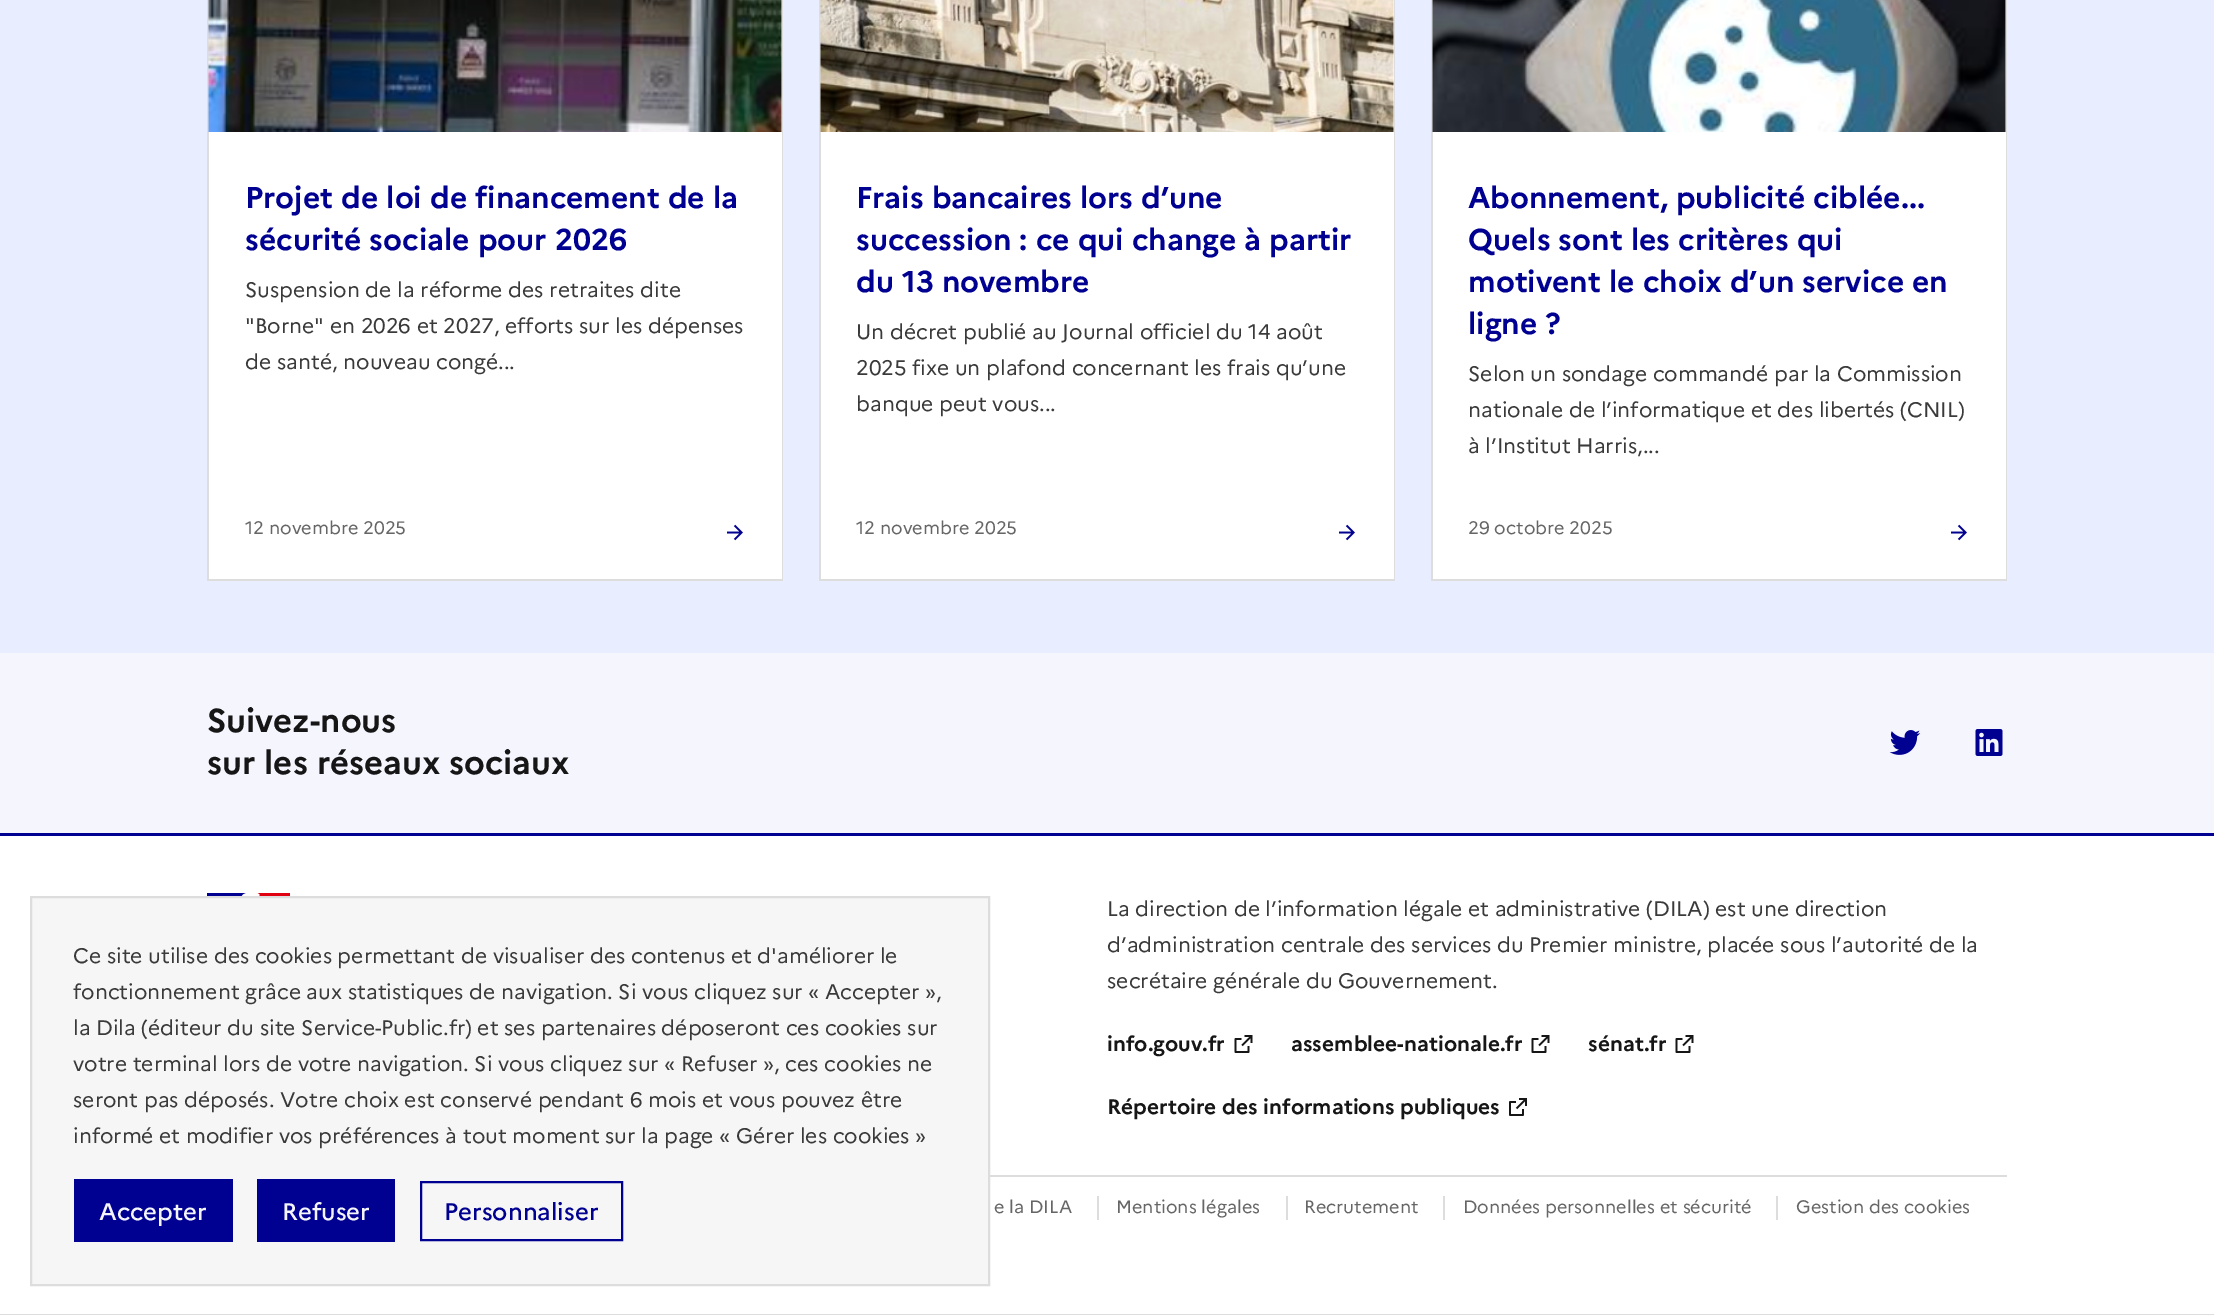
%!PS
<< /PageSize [2214 1315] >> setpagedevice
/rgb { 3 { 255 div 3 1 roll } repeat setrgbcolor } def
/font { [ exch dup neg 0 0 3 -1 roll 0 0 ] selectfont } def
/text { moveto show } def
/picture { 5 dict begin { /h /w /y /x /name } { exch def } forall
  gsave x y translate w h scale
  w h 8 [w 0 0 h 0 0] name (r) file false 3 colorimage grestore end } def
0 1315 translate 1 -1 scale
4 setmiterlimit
255 255 255 rgb
0 0 2214 1315 rectfill
232 237 255 rgb
0 0 2214 653 rectfill
255 255 255 rgb
209 0 573 579 rectfill
221 221 221 rgb
782 0 1 581 rectfill
207 0 2 581 rectfill
207 579 576 2 rectfill
(img_01.rgb) 208 0 574 132 picture
(img_02.rgb) 727 524 16 17 picture
255 255 255 rgb
821 0 573 579 rectfill
221 221 221 rgb
1394 0 1 581 rectfill
819 0 2 581 rectfill
819 579 576 2 rectfill
(img_03.rgb) 820 0 574 132 picture
(img_02.rgb) 1339 524 16 17 picture
255 255 255 rgb
1433 0 573 579 rectfill
221 221 221 rgb
2006 0 1 581 rectfill
1431 0 2 581 rectfill
1431 579 576 2 rectfill
(img_04.rgb) 1432 0 574 132 picture
(img_02.rgb) 1951 524 16 17 picture
245 245 254 rgb
0 653 2214 180 rectfill
(img_05.rgb) 1889 730 32 25 picture
(img_06.rgb) 1975 729 28 27 picture
221 221 221 rgb
0 1314 2214 1 rectfill
0 0 145 rgb
0 833 2214 3 rectfill
207 893 39 3 rectfill
225 0 15 rgb
257 893 33 3 rectfill
(img_07.rgb) 241 893 19 3 picture
(img_08.rgb) 1234 1035 19 18 picture
(img_08.rgb) 1531 1035 19 18 picture
(img_08.rgb) 1675 1035 19 18 picture
(img_09.rgb) 1509 1098 18 18 picture
221 221 221 rgb
990 1175 1017 2 rectfill
1097 1196 2 24 rectfill
1286 1196 2 24 rectfill
1443 1196 2 24 rectfill
1776 1196 2 24 rectfill
246 246 246 rgb
31 897 moveto 958 0 rlineto 0 388 rlineto -958 0 rlineto closepath gsave fill grestore
221 221 221 rgb
2 setlinewidth
stroke
0 0 145 rgb
74 1179 159 63 rectfill
257 1179 138 63 rectfill
421 1182 201 58 rectstroke
/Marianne-Bold 30 font
(Projet de loi de financement de la) 245 208 text
(sécurité sociale pour 2026) 245 250 text
/Marianne-Regular 21 font
58 58 58 rgb
(Suspension de la réforme des retraites dite) 245 297 text
("Borne" en 2026 et 2027, efforts sur les dépenses) 245 333 text
(de santé, nouveau congé...) 245 369 text
/Marianne-Regular 18 font
102 102 102 rgb
(12 novembre 2025) 245 534 text
/Marianne-Bold 30 font
0 0 145 rgb
(Frais bancaires lors d’une) 856 208 text
(succession : ce qui change à partir) 856 250 text
(du 13 novembre) 856 292 text
/Marianne-Regular 21 font
58 58 58 rgb
(Un décret publié au Journal officiel du 14 août) 856 339 text
(2025 fixe un plafond concernant les frais qu’une) 856 375 text
(banque peut vous...) 856 411 text
/Marianne-Regular 18 font
102 102 102 rgb
(12 novembre 2025) 856 534 text
/Marianne-Bold 30 font
0 0 145 rgb
(Abonnement, publicité ciblée...) 1468 208 text
(Quels sont les critères qui) 1468 250 text
(motivent le choix d’un service en) 1468 292 text
(ligne ?) 1468 334 text
/Marianne-Regular 21 font
58 58 58 rgb
(Selon un sondage commandé par la Commission) 1468 381 text
(nationale de l’informatique et des libertés \(CNIL\)) 1468 417 text
(à l’Institut Harris,...) 1468 453 text
/Marianne-Regular 18 font
102 102 102 rgb
(29 octobre 2025) 1468 534 text
/Marianne-Bold 33 font
22 22 22 rgb
(Suivez-nous) 207 732 text
(sur les réseaux sociaux) 207 774 text
/Marianne-Regular 21 font
58 58 58 rgb
(La direction de l’information légale et administrative \(DILA\) est une direction) 1107 916 text
(d’administration centrale des services du Premier ministre, placée sous l’autorité de la) 1107 952 text
(secrétaire générale du Gouvernement.) 1107 988 text
/Marianne-Bold 21 font
22 22 22 rgb
(info.gouv.fr) 1107 1051 text
(assemblee-nationale.fr) 1291 1051 text
(sénat.fr) 1588 1051 text
(Répertoire des informations publiques) 1107 1114 text
/Marianne-Regular 18 font
102 102 102 rgb
(e la DILA) 994 1213 text
(Mentions légales) 1116 1213 text
(Recrutement) 1304 1213 text
(Données personnelles et sécurité) 1463 1213 text
(Gestion des cookies) 1796 1213 text
/Marianne-Regular 21 font
58 58 58 rgb
(Ce site utilise des cookies permettant de visualiser des contenus et d'améliorer le) 73 963 text
(fonctionnement grâce aux statistiques de navigation. Si vous cliquez sur « Accepter »,) 73 999 text
(la Dila \(éditeur du site Service-Public.fr\) et ses partenaires déposeront ces cookies sur) 73 1035 text
(votre terminal lors de votre navigation. Si vous cliquez sur « Refuser », ces cookies ne) 73 1071 text
(seront pas déposés. Votre choix est conservé pendant 6 mois et vous pouvez être) 73 1107 text
(informé et modifier vos préférences à tout moment sur la page « Gérer les cookies ») 73 1143 text
/Marianne-Medium 24 font
245 245 254 rgb
(Accepter) 99 1220 text
(Refuser) 282 1220 text
0 0 145 rgb
(Personnaliser) 444 1220 text
showpage
